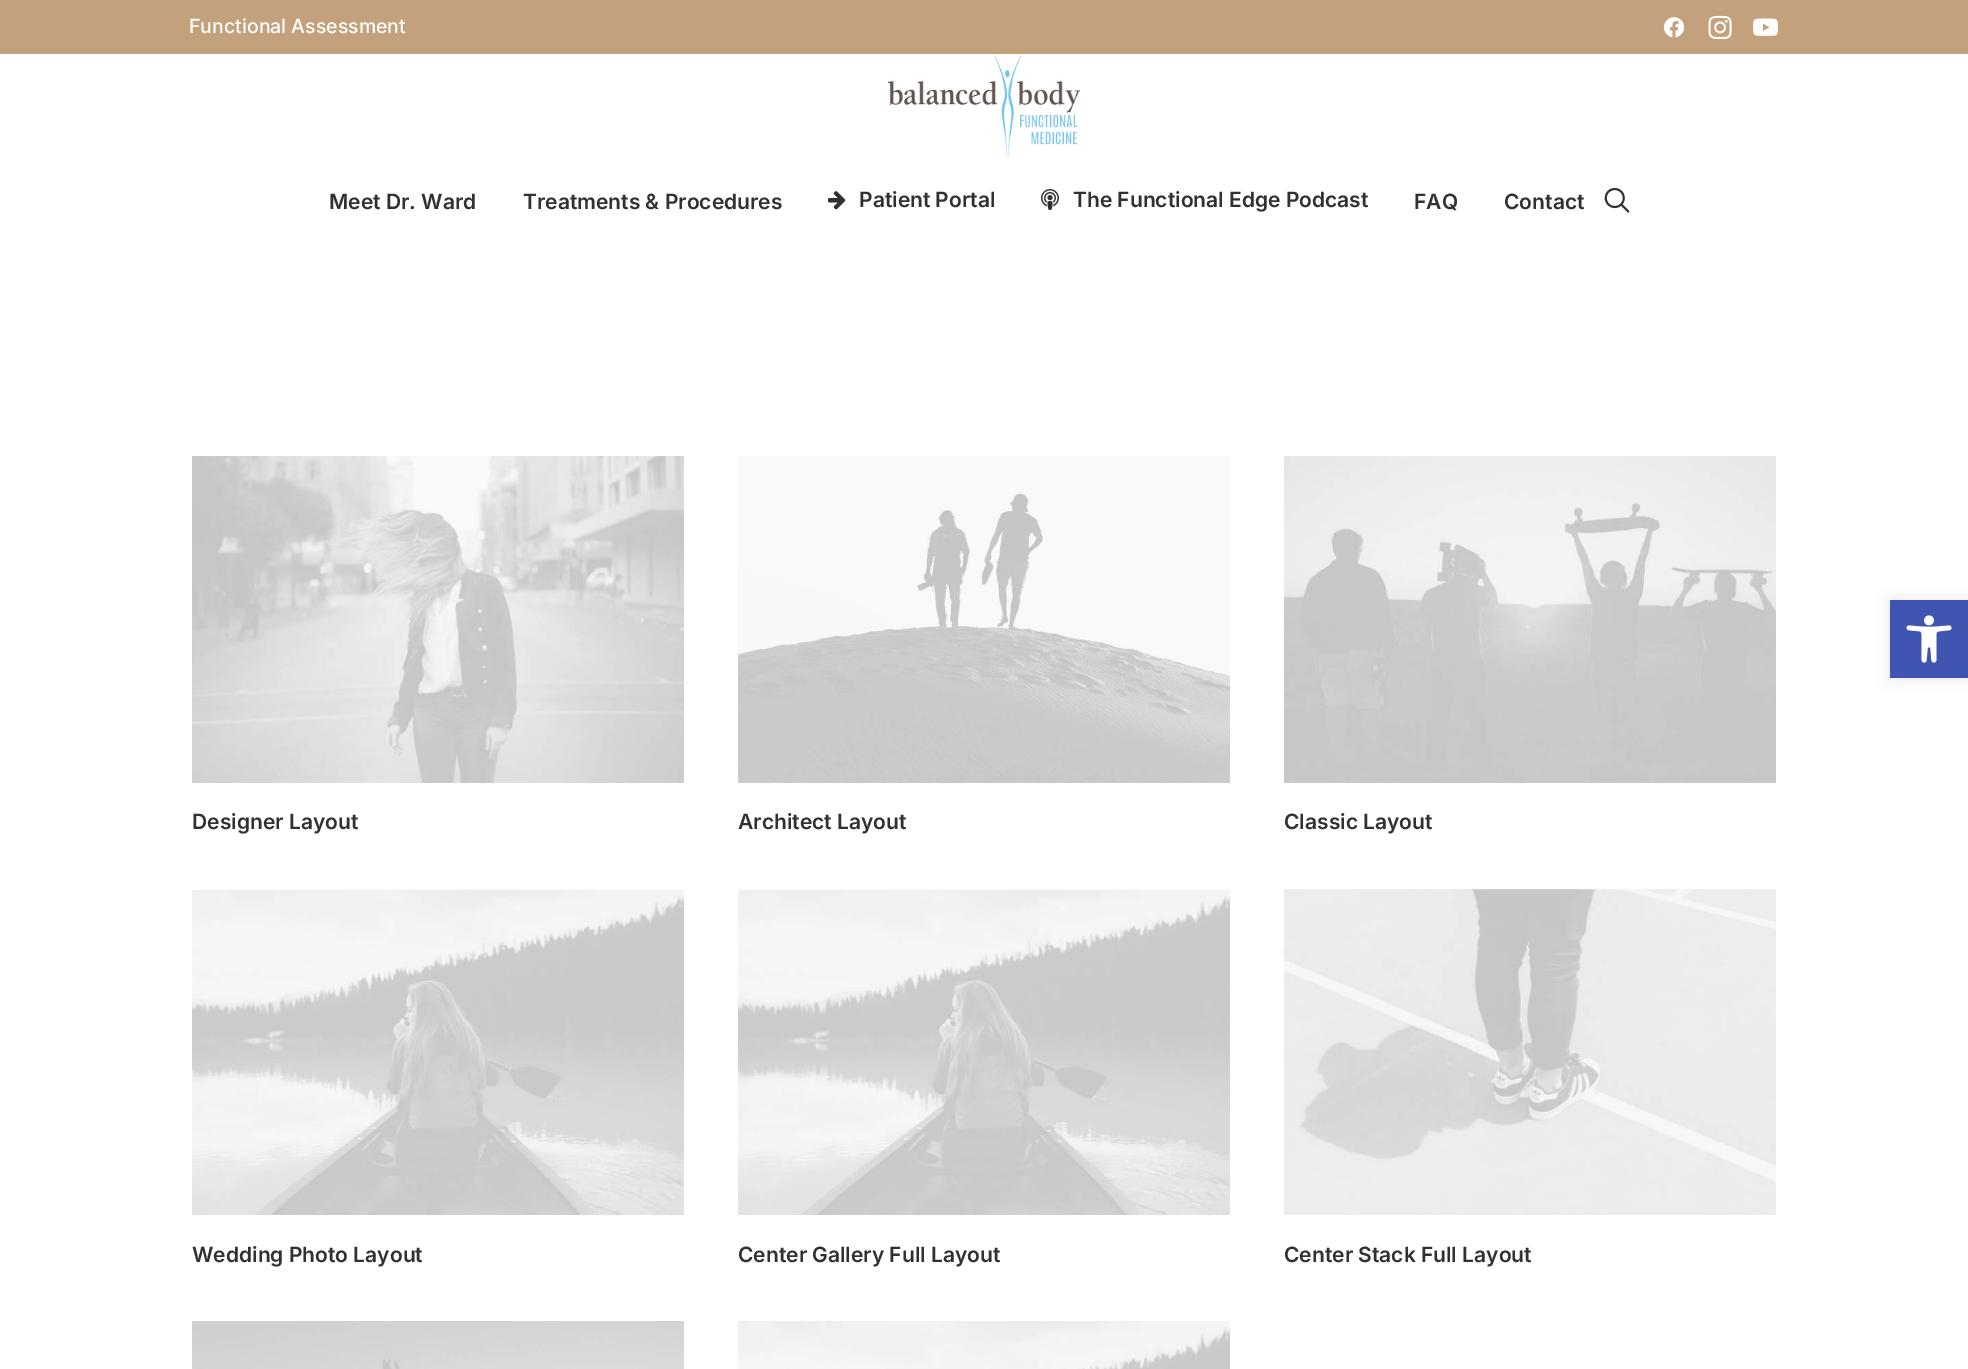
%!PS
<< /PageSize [1968 1369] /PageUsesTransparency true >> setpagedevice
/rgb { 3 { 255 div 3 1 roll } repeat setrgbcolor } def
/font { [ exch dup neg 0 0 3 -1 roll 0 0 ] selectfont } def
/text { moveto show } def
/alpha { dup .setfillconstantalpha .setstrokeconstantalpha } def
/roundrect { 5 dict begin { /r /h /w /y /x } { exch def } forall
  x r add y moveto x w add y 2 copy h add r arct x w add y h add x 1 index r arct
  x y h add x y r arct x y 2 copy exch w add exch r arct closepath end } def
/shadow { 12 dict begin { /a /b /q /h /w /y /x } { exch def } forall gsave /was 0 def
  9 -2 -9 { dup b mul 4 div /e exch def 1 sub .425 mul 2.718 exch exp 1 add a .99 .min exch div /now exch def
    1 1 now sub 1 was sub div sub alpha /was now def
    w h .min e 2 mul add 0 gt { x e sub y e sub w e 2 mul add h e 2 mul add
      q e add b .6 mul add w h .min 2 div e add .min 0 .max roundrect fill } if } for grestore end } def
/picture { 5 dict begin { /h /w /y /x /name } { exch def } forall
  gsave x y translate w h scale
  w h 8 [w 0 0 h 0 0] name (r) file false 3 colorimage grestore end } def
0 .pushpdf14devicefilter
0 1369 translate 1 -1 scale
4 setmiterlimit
255 255 255 rgb
0 0 1968 1369 rectfill
195 161 125 rgb
0 0 1968 54 rectfill
(img_01.rgb) 1663 17 22 21 picture
(img_02.rgb) 1708 15 24 24 picture
(img_03.rgb) 1753 18 25 18 picture
(img_04.rgb) 888 54 192 104 picture
(img_05.rgb) 828 191 18 19 picture
(img_06.rgb) 1041 189 18 21 picture
(img_07.rgb) 1604 187 26 26 picture
(img_08.rgb) 192 456 492 327 picture
(img_09.rgb) 738 456 492 327 picture
(img_10.rgb) 1284 456 492 327 picture
(img_11.rgb) 192 889 492 326 picture
(img_12.rgb) 738 889 492 326 picture
(img_13.rgb) 1284 889 492 326 picture
(img_14.rgb) 192 1321 492 48 picture
(img_15.rgb) 738 1321 492 48 picture
0 0 0 rgb
1890 600 78 78 0 7.5 0.1 shadow
64 84 178 rgb
1890 600 78 78 rectfill
(img_16.rgb) 1906 615 46 48 picture
/Inter-Medium 19.5 font
255 255 255 rgb
(Functional Assessment) 189 33 text
/Inter-SemiBold 21 font
48 49 51 rgb
(Meet Dr. Ward) 329 209 text
(Treatments & Procedures) 523 209 text
(Patient Portal) 859 207 text
(The Functional Edge Podcast) 1073 207 text
(FAQ) 1414 209 text
(Contact) 1504 209 text
(Designer Layout) 192 829 text
(Architect Layout) 738 829 text
(Classic Layout) 1284 829 text
(Wedding Photo Layout) 192 1262 text
(Center Gallery Full Layout) 738 1262 text
(Center Stack Full Layout) 1284 1262 text
.poppdf14devicefilter showpage
